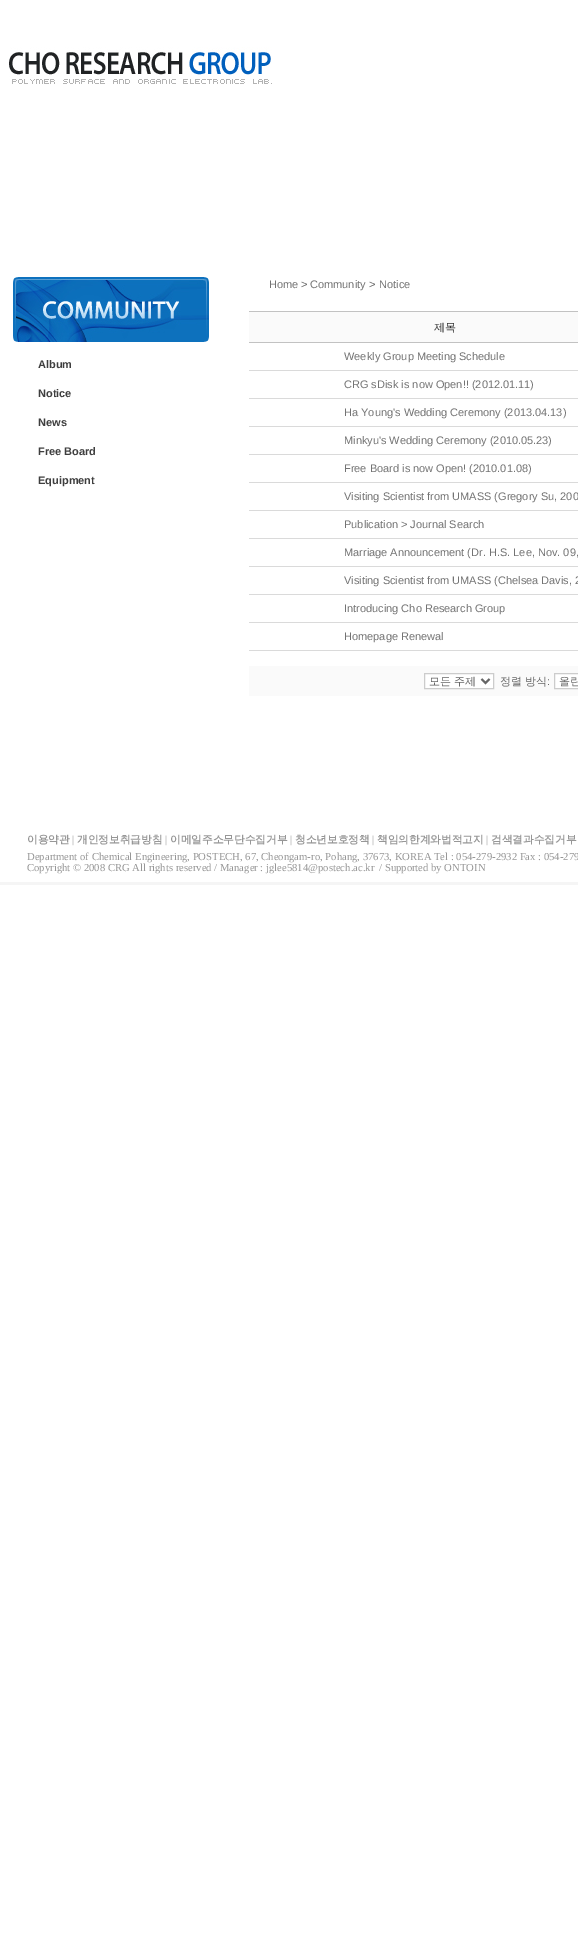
%!PS
<< /PageSize [578 1955] >> setpagedevice
/rgb { 3 { 255 div 3 1 roll } repeat setrgbcolor } def
/font { [ exch dup neg 0 0 3 -1 roll 0 0 ] selectfont } def
/text { moveto show } def
/picture { 5 dict begin { /h /w /y /x /name } { exch def } forall
  gsave x y translate w h scale
  w h 8 [w 0 0 h 0 0] name (r) file false 3 colorimage grestore end } def
0 1955 translate 1 -1 scale
4 setmiterlimit
255 255 255 rgb
0 0 578 1955 rectfill
(img_01.rgb) 9 47 263 37 picture
(img_02.rgb) 13 277 196 65 picture
194 194 194 rgb
249 311 329 1 rectfill
250 250 250 rgb
249 312 329 30 rectfill
194 194 194 rgb
249 342 329 1 rectfill
218 218 218 rgb
249 370 329 1 rectfill
249 398 329 1 rectfill
249 426 329 1 rectfill
249 454 329 1 rectfill
249 482 329 1 rectfill
249 510 329 1 rectfill
249 538 329 1 rectfill
249 566 329 1 rectfill
249 594 329 1 rectfill
249 622 329 1 rectfill
249 650 329 1 rectfill
250 250 250 rgb
249 666 329 30 rectfill
255 255 255 rgb
424.5 673.5 moveto 69 0 rlineto 0 15 rlineto -69 0 rlineto closepath gsave fill grestore
204 204 204 rgb
stroke
102 102 102 rgb
2 setlinewidth
481.5 679 moveto 4 4 rlineto 4 -4 rlineto stroke
255 255 255 rgb
554.5 673.5 moveto 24 0 rlineto 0 15 rlineto -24 0 rlineto closepath gsave fill grestore
204 204 204 rgb
1 setlinewidth
stroke
245 245 245 rgb
0 882 578 3 rectfill
/LiberationSans-Bold 11 font
62 62 62 rgb
(Album) 38 368 text
(Notice) 38 397 text
(News) 38 426 text
(Free Board) 38 455 text
(Equipment) 38 484 text
/LiberationSans-Regular 11 font
115 115 115 rgb
(Home) 269 288 text
102 102 102 rgb
(>) 301 288 text
115 115 115 rgb
(Community) 310 288 text
102 102 102 rgb
(>) 369 288 text
115 115 115 rgb
(Notice) 379 288 text
/WenQuanYiZenHei-Medium 11 font
51 51 51 rgb
(제목) 434 331 text
/LiberationSans-Regular 11 font
115 115 115 rgb
(Weekly Group Meeting Schedule) 344 360 text
(CRG sDisk is now Open!! \(2012.01.11\)) 344 388 text
(Ha Young's Wedding Ceremony \(2013.04.13\)) 344 416 text
(Minkyu's Wedding Ceremony \(2010.05.23\)) 344 444 text
(Free Board is now Open! \(2010.01.08\)) 344 472 text
(Visiting Scientist from UMASS \(Gregory Su, 200) 344 500 text
(Publication > Journal Search) 344 528 text
(Marriage Announcement \(Dr. H.S. Lee, Nov. 09,) 344 556 text
(Visiting Scientist from UMASS \(Chelsea Davis, 2) 344 584 text
(Introducing Cho Research Group) 344 612 text
(Homepage Renewal) 344 640 text
/WenQuanYiZenHei-Medium 11 font
102 102 102 rgb
(모든 주제) 429 685 text
(정렬 방식) 500 685 text
/LiberationSans-Regular 11 font
(:) 547 685 text
/WenQuanYiZenHei-Medium 11 font
(올린) 559 685 text
/WenQuanYiZenHei-Bold 10.67 font
151 151 151 rgb
(이용약관) 27 843 text
/LiberationSerif-Regular 10.67 font
(|) 72 843 text
/WenQuanYiZenHei-Bold 10.67 font
(개인정보취급방침) 77 843 text
/LiberationSerif-Regular 10.67 font
(|) 165 843 text
/WenQuanYiZenHei-Bold 10.67 font
(이메일주소무단수집거부) 170 843 text
/LiberationSerif-Regular 10.67 font
(|) 290 843 text
/WenQuanYiZenHei-Bold 10.67 font
(청소년보호정책) 295 843 text
/LiberationSerif-Regular 10.67 font
(|) 372 843 text
/WenQuanYiZenHei-Bold 10.67 font
(책임의한계와법적고지) 377 843 text
/LiberationSerif-Regular 10.67 font
(|) 486 843 text
/WenQuanYiZenHei-Bold 10.67 font
(검색결과수집거부) 491 843 text
/LiberationSerif-Regular 10.67 font
(Department of Chemical Engineering, POSTECH, 67, Cheongam-ro, Pohang, 37673, KOREA Tel : 054-279-2932 Fax : 054-279) 27 860 text
(Copyright © 2008 CRG All rights reserved / Manager : jglee5814@postech.ac.kr) 27 871 text
(/ Supported by ONTOIN) 379 871 text
showpage
